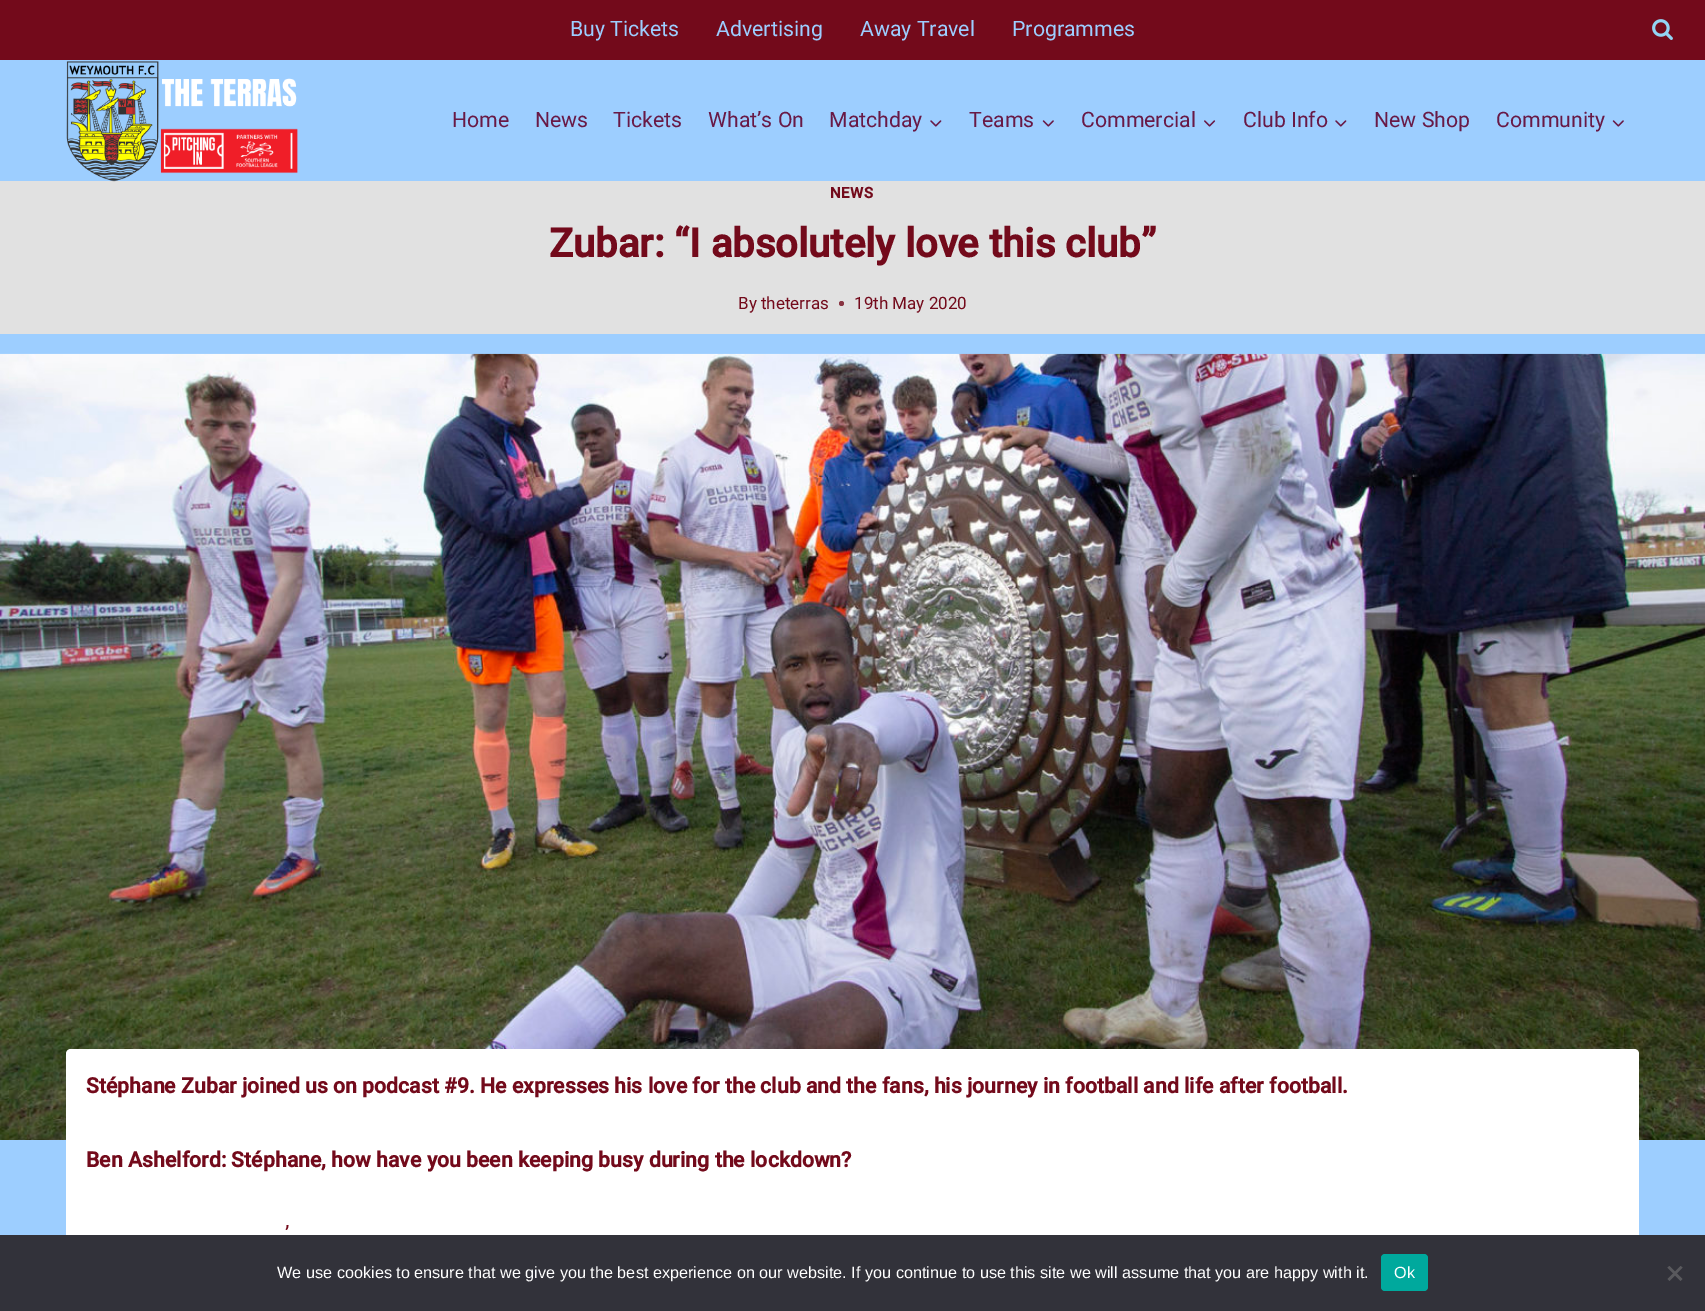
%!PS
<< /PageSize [1705 1311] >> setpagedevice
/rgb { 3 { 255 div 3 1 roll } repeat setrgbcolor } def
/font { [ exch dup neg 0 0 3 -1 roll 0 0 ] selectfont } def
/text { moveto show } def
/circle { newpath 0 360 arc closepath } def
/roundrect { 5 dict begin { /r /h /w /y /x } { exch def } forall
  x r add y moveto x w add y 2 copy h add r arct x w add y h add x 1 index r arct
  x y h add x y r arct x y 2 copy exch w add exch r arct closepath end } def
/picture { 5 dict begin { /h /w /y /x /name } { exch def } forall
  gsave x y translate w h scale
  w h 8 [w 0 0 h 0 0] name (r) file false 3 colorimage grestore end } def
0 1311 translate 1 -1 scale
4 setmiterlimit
157 206 255 rgb
0 0 1705 1311 rectfill
115 10 27 rgb
0 0 1705 60 rectfill
(img_01.rgb) 1652 19 21 21 picture
225 225 225 rgb
0 181 1705 153 rectfill
(img_02.rgb) 66 61 232 121 picture
(img_03.rgb) 930 120 12 7 picture
(img_04.rgb) 1042 120 12 7 picture
(img_05.rgb) 1204 120 12 7 picture
(img_03.rgb) 1335 120 12 7 picture
(img_04.rgb) 1612 120 12 7 picture
137 53 67 rgb
841.5 303.5 2.5 circle fill
(img_06.rgb) 0 353 1705 787 picture
255 255 255 rgb
71 1049 moveto 1563 0 rlineto 3 0 5 2 5 5 rcurveto 0 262 rlineto -1573 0 rlineto 0 -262 rlineto 0 -3 2 -5 5 -5 rcurveto closepath fill
50 50 58 rgb
0 1235 1705 76 rectfill
0 169 157 rgb
1381 1254 47 37 4 roundrect fill
89 89 93 rgb
1680.5 1266 moveto 2 1.5 rlineto -13 13.5 rlineto -2 -2 rlineto closepath fill
1667.5 1267.5 moveto 2 -1.5 rlineto 13 13 rlineto -2 2 rlineto closepath fill
/Roboto-Regular 21.25 font
157 206 255 rgb
(Buy Tickets) 570 36 text
(Advertising) 716 36 text
(Away Travel) 860 36 text
(Programmes) 1012 36 text
104 25 70 rgb
(Home) 452 127 text
(News) 535 127 text
(Tickets) 613 127 text
(What’s On) 708 127 text
(Matchday) 829 127 text
(Teams) 969 127 text
(Commercial) 1081 127 text
(Club Info) 1243 127 text
(New Shop) 1374 127 text
(Community) 1496 127 text
/Roboto-Bold 15 font
115 10 27 rgb
830 198 moveto 0.5 0 (NEWS) ashow
/Roboto-Bold 40 font
(Zubar: “I absolutely love this club”) 549 257 text
/Roboto-Regular 17 font
(By theterras) 738 309 text
(19th May 2020) 854 309 text
/Roboto-Bold 21.25 font
(Stéphane Zubar joined us on podcast #9. He expresses his love for the club and the fans, his journey in football and life after football.) 86 1093 text
(Ben Ashelford: Stéphane, how have you been keeping busy during the lockdown?) 86 1167 text
/Roboto-Regular 21.25 font
(’) 285 1241 text
/LiberationSans-Regular 16.25 font
255 255 255 rgb
(We use cookies to ensure that we give you the best experience on our website. If you continue to use this site we will assume that you are happy with it.) 277 1278 text
(Ok) 1394 1278 text
showpage
